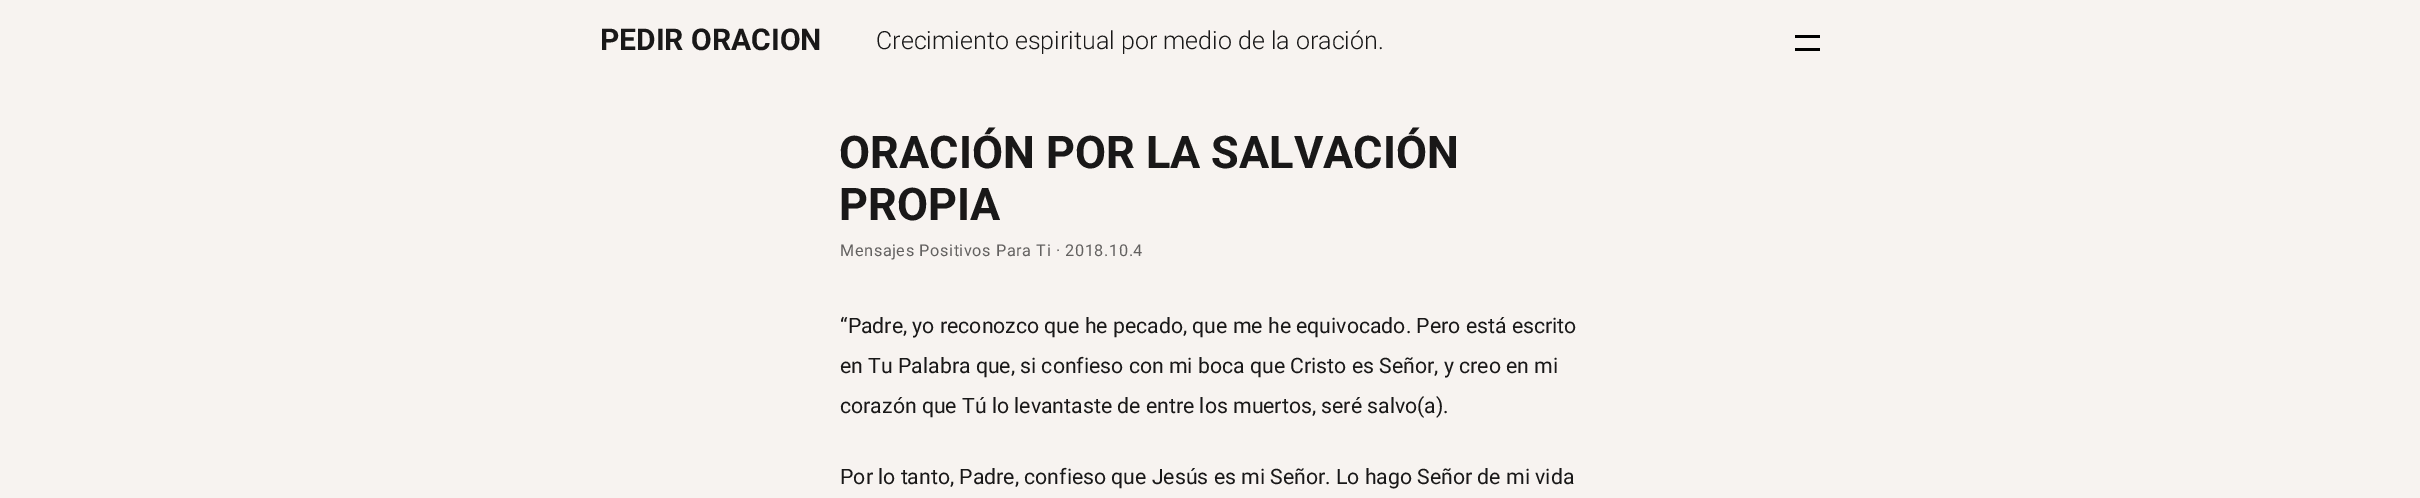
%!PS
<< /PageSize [2420 498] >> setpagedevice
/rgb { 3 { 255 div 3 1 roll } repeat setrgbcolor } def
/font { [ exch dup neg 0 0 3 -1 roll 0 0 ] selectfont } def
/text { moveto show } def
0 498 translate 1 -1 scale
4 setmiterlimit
247 243 240 rgb
0 0 2420 498 rectfill
0 0 0 rgb
1795 35 25 3 rectfill
1795 48 25 3 rectfill
/Roboto-Bold 30 font
25 24 24 rgb
(PEDIR ORACION) 600 50 text
/Roboto-Light 25 font
(Crecimiento espiritual por medio de la oración.) 876 49 text
/Roboto-Bold 45 font
(ORACIÓN POR LA SALVACIÓN) 839 168 text
(PROPIA) 839 220 text
/Roboto-Regular 16.25 font
99 97 96 rgb
840 256 moveto 0.6 0 (Mensajes Positivos Para Ti · 2018.10.4) ashow
/Roboto-Regular 21.25 font
25 24 24 rgb
(“Padre, yo reconozco que he pecado, que me he equivocado. Pero está escrito) 840 333 text
(en Tu Palabra que, si confieso con mi boca que Cristo es Señor, y creo en mi) 840 373 text
(corazón que Tú lo levantaste de entre los muertos, seré salvo\(a\).) 840 413 text
(Por lo tanto, Padre, confieso que Jesús es mi Señor. Lo hago Señor de mi vida) 840 484 text
showpage
